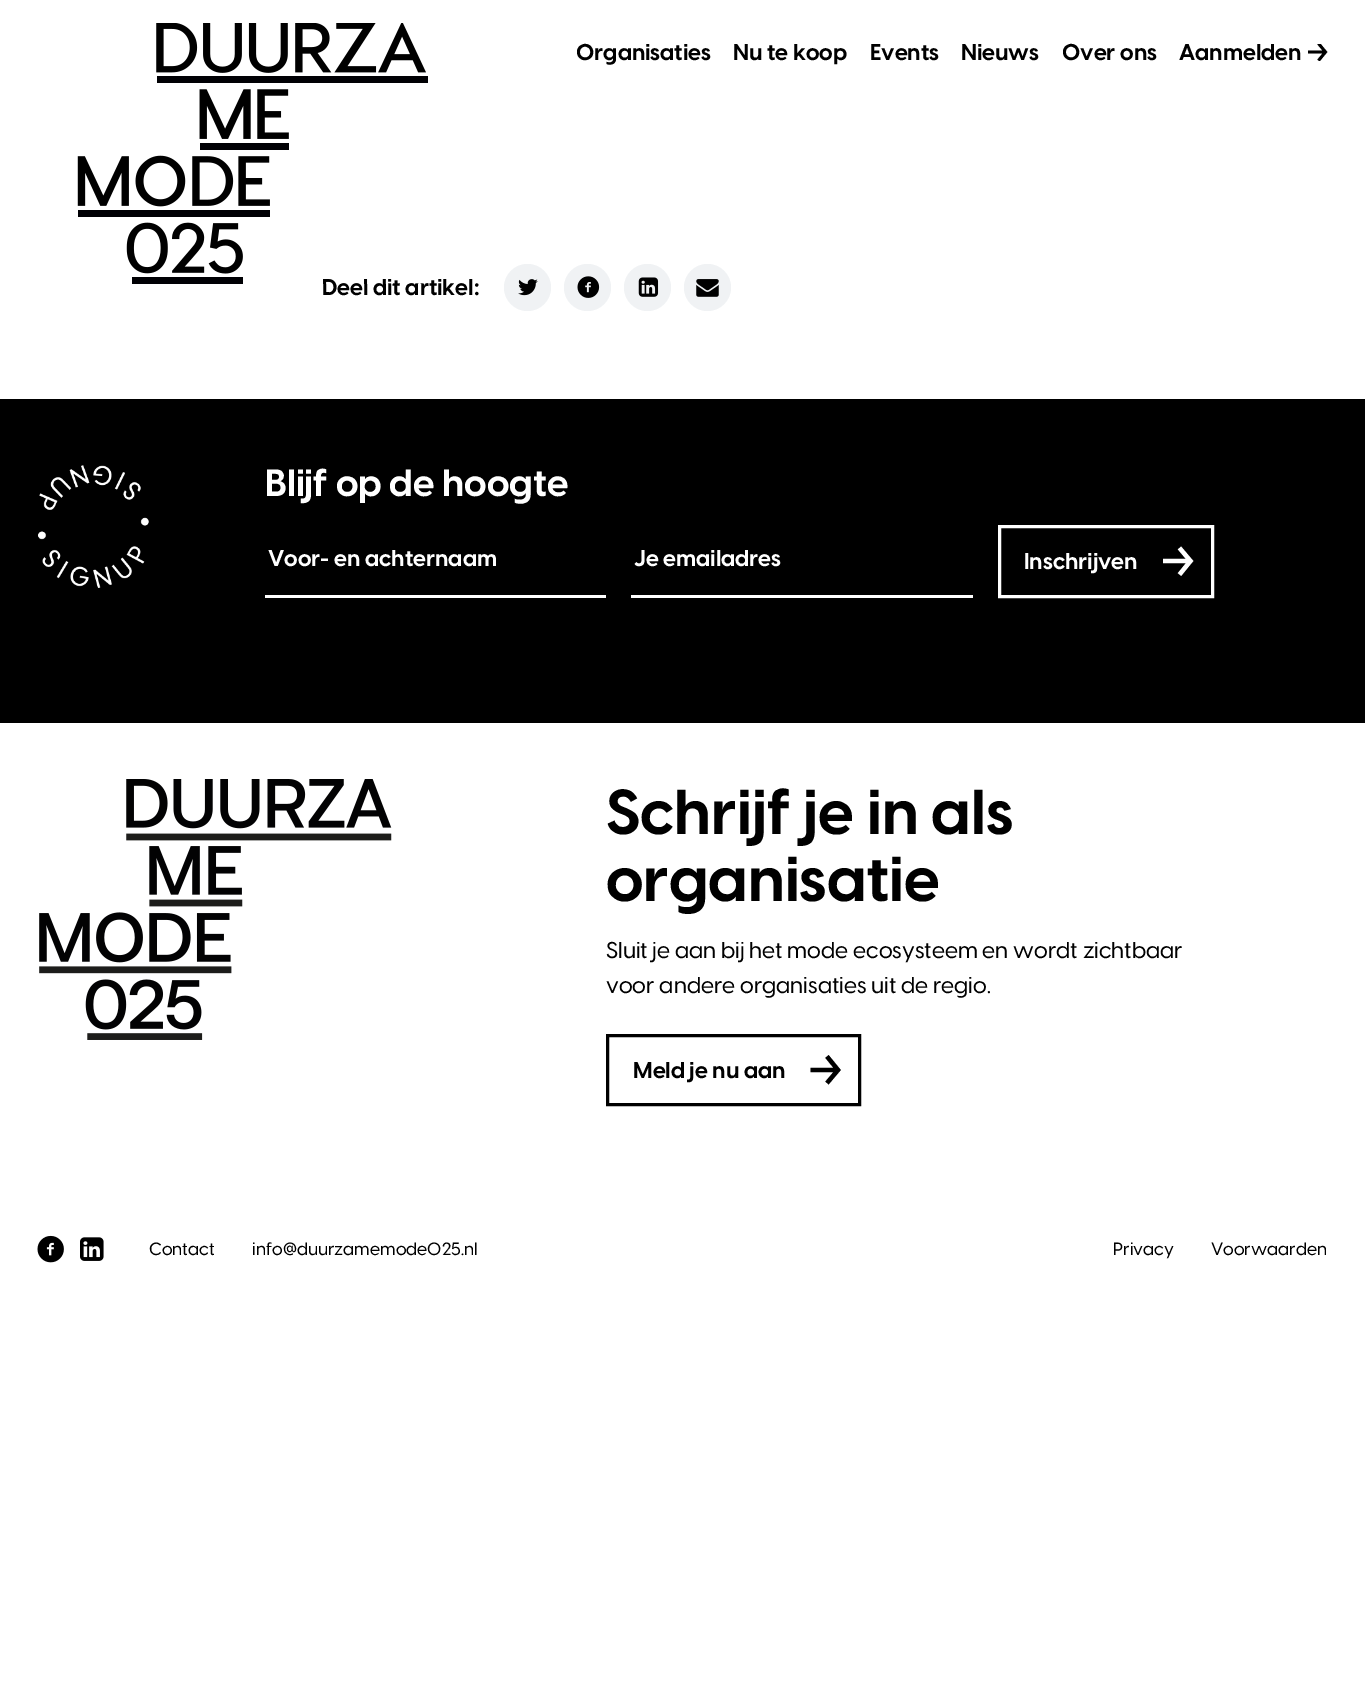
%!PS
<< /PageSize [1365 1699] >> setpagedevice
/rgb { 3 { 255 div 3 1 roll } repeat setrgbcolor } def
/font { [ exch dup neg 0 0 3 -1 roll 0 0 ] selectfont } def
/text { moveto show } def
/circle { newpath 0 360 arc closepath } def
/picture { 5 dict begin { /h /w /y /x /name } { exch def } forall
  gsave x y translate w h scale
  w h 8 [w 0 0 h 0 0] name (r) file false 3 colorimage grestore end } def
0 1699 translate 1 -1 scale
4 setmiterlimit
255 255 255 rgb
0 0 1365 1699 rectfill
gsave
1308 44 20 17 rectclip
0 0 0 rgb
2.8 setlinewidth
1318.5 60.5 moveto 7 -8.5 rlineto -7 -8.5 rlineto 1308 52 moveto 17.5 0 rlineto stroke
grestore
240 242 244 rgb
527.5 287.5 23.5 circle fill
(img_02.rgb) 518 279 20 17 picture
587.5 287.5 23.5 circle fill
(img_03.rgb) 577 276 23 22 picture
647.5 287.5 23.5 circle fill
(img_04.rgb) 638 277 21 20 picture
707.5 287.5 23.5 circle fill
(img_05.rgb) 696 279 23 18 picture
0 0 0 rgb
0 399 1365 324 rectfill
(img_06.rgb) 38 465 111 123 picture
255 255 255 rgb
265 595 341 3 rectfill
631 595 342 3 rectfill
3 setlinewidth
999.5 526.5 213 70 rectstroke
4.3 setlinewidth
1179.5 574.5 moveto 11 -13.5 rlineto -11 -13 rlineto 1163 561 moveto 27.5 0 rlineto stroke
(img_07.rgb) 39 779 353 261 picture
0 0 0 rgb
3 setlinewidth
607.5 1035.5 252 69 rectstroke
4.3 setlinewidth
827 1083 moveto 11 -13 rlineto -11 -13.5 rlineto 810.5 1070 moveto 27.5 0 rlineto stroke
(img_08.rgb) 37 1235 27 28 picture
(img_09.rgb) 80 1237 24 24 picture
/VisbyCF-Bold 22.5 font
(Organisaties) 576 60 text
(Nu te koop) 733 60 text
(Events) 870 60 text
(Nieuws) 961 60 text
(Over ons) 1062 60 text
(Aanmelden) 1179 60 text
(Deel dit artikel:) 322 295 text
(img_01.rgb) 77 23 351 261 picture
/VisbyCF-Bold 37.5 font
255 255 255 rgb
(Blijf op de hoogte) 265 496 text
/VisbyCF-Bold 22.5 font
(Voor- en achternaam) 268 566 text
(Je emailadres) 634 566 text
(Inschrijven) 1024 569 text
/VisbyCF-Bold 62.5 font
0 0 0 rgb
(Schrijf je in als) 606 834 text
(organisatie) 606 901 text
/VisbyCF-Medium 22.5 font
(Sluit je aan bij het mode ecosysteem en wordt zichtbaar) 606 958 text
(voor andere organisaties uit de regio.) 606 993 text
/VisbyCF-Bold 22.5 font
(Meld je nu aan) 633 1078 text
/VisbyCF-Medium 17.5 font
(Contact) 149 1255 text
(info@duurzamemode025.nl) 252 1255 text
(Privacy) 1113 1255 text
(Voorwaarden) 1211 1255 text
showpage
